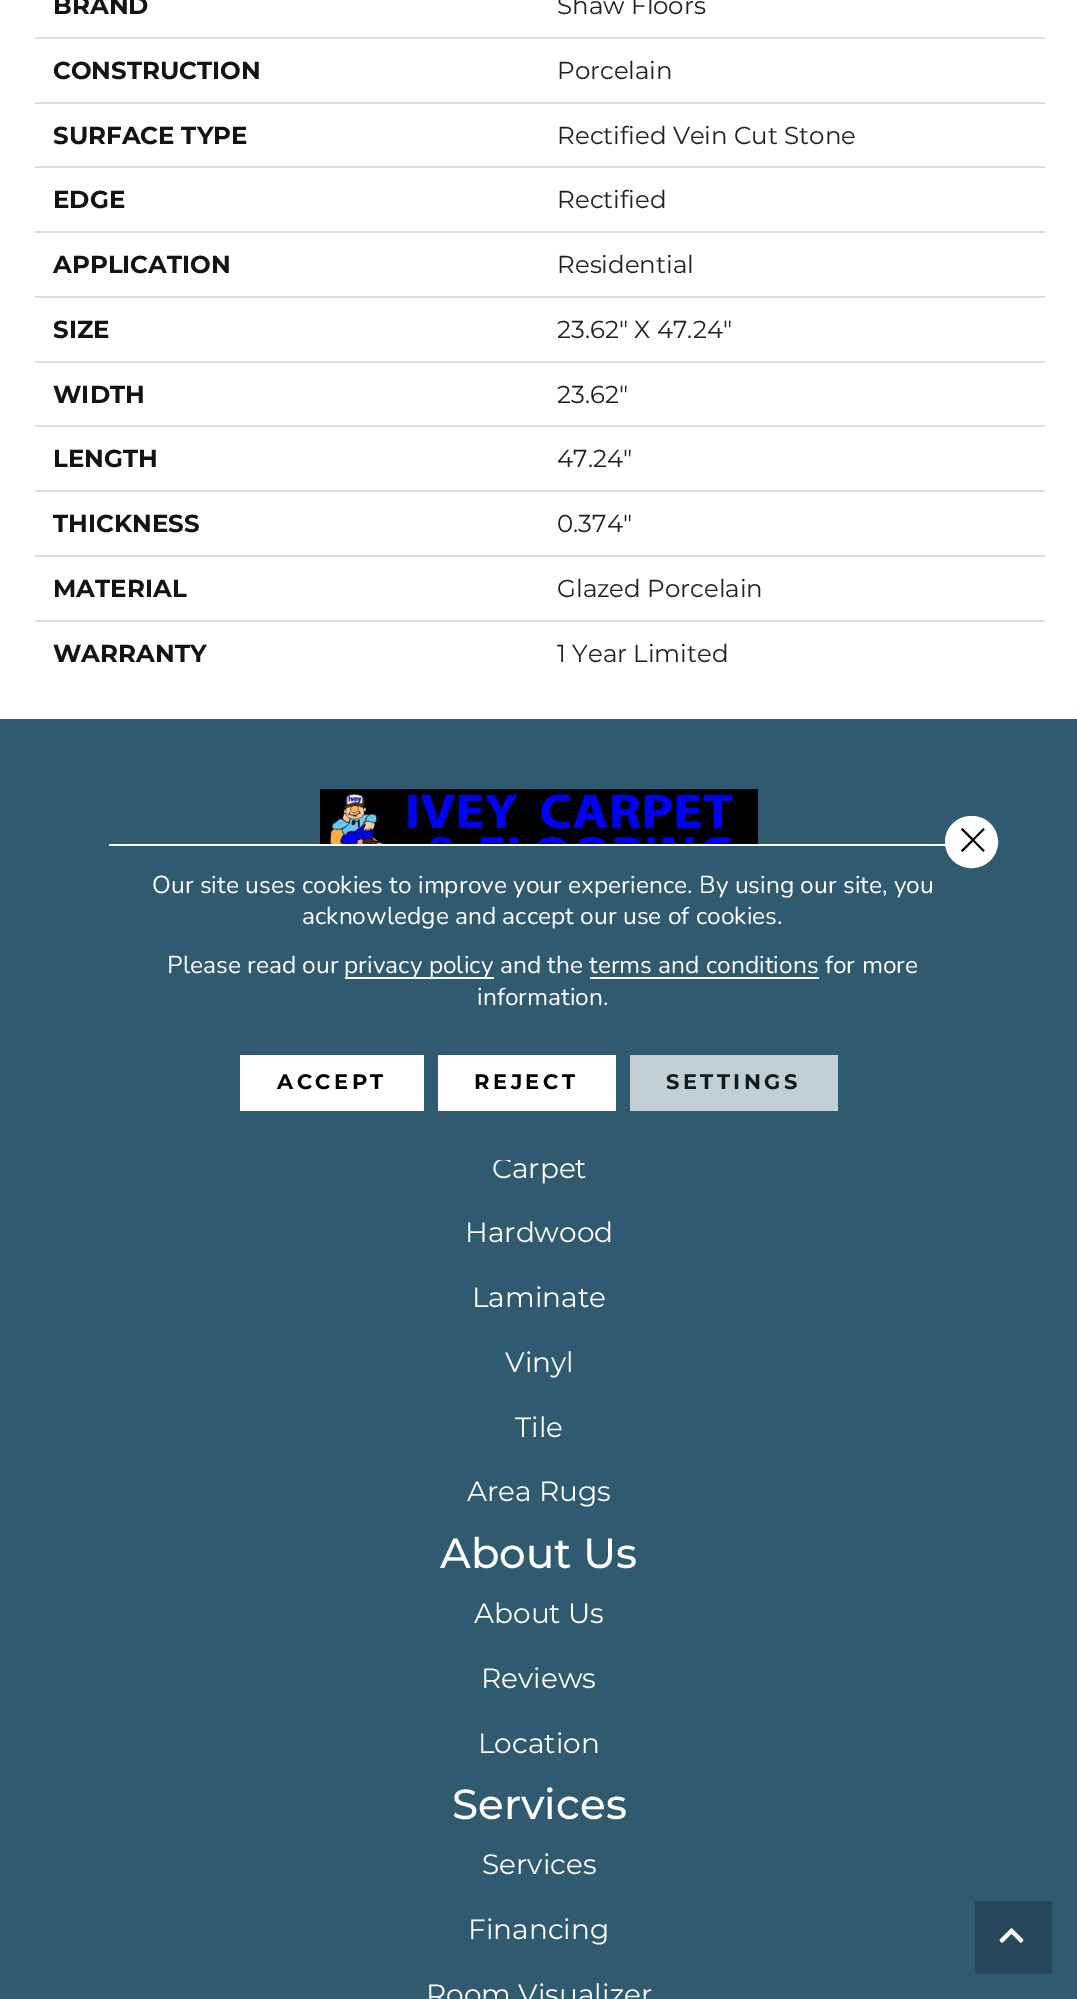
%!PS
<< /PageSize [1077 1999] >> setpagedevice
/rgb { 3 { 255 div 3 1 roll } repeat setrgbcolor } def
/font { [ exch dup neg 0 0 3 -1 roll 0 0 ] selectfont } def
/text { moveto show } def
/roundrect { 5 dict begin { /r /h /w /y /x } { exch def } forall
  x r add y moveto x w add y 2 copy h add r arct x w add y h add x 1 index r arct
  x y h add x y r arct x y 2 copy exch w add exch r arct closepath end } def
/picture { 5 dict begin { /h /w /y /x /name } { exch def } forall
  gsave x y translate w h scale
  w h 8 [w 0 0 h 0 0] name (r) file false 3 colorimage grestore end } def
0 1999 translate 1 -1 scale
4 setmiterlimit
255 255 255 rgb
0 0 1077 1999 rectfill
221 221 221 rgb
35 37 1010 2 rectfill
35 102 1010 2 rectfill
35 166 1010 2 rectfill
35 231 1010 2 rectfill
35 296 1010 2 rectfill
35 361 1010 2 rectfill
35 425 1010 2 rectfill
35 490 1010 2 rectfill
35 555 1010 2 rectfill
35 620 1010 2 rectfill
48 90 112 rgb
0 719 1077 1280 rectfill
0 0 0 rgb
320 789 438 55 rectfill
(img_01.rgb) 329 793 404 51 picture
255 255 255 rgb
109 844 837 2 rectfill
345 977 149 2 rectfill
590 977 229 2 rectfill
946 817 51 50 25 roundrect gsave fill grestore
2 setlinewidth
stroke
0 0 0 rgb
983.5 828 moveto 1 1.5 rlineto -22 22.5 rlineto -1.5 -1.5 rlineto closepath fill
961 829.5 moveto 1.5 -1.5 rlineto 22 22.5 rlineto -1 1.5 rlineto closepath fill
255 255 255 rgb
240 1055 184 56 rectfill
438 1055 178 56 rectfill
193 206 212 rgb
630 1055 208 56 rectfill
38 72 90 rgb
975 1901 77 73 rectfill
(img_02.rgb) 999 1928 25 15 picture
/Montserrat-Bold 24.5 font
20 20 20 rgb
(BRAND) 53 14 text
/Montserrat-Regular 24.5 font
35 31 32 rgb
(Shaw Floors) 557 14 text
/Montserrat-Bold 24.5 font
20 20 20 rgb
(CONSTRUCTION) 53 79 text
/Montserrat-Regular 24.5 font
35 31 32 rgb
(Porcelain) 557 79 text
/Montserrat-Bold 24.5 font
20 20 20 rgb
(SURFACE TYPE) 53 144 text
/Montserrat-Regular 24.5 font
35 31 32 rgb
(Rectified Vein Cut Stone) 557 144 text
/Montserrat-Bold 24.5 font
20 20 20 rgb
(EDGE) 53 208 text
/Montserrat-Regular 24.5 font
35 31 32 rgb
(Rectified) 557 208 text
/Montserrat-Bold 24.5 font
20 20 20 rgb
(APPLICATION) 53 273 text
/Montserrat-Regular 24.5 font
35 31 32 rgb
(Residential) 557 273 text
/Montserrat-Bold 24.5 font
20 20 20 rgb
(SIZE) 53 338 text
/Montserrat-Regular 24.5 font
35 31 32 rgb
(23.62" X 47.24") 557 338 text
/Montserrat-Bold 24.5 font
20 20 20 rgb
(WIDTH) 53 403 text
/Montserrat-Regular 24.5 font
35 31 32 rgb
(23.62") 557 403 text
/Montserrat-Bold 24.5 font
20 20 20 rgb
(LENGTH) 53 467 text
/Montserrat-Regular 24.5 font
35 31 32 rgb
(47.24") 557 467 text
/Montserrat-Bold 24.5 font
20 20 20 rgb
(THICKNESS) 53 532 text
/Montserrat-Regular 24.5 font
35 31 32 rgb
(0.374") 557 532 text
/Montserrat-Bold 24.5 font
20 20 20 rgb
(MATERIAL) 53 597 text
/Montserrat-Regular 24.5 font
35 31 32 rgb
(Glazed Porcelain) 557 597 text
/Montserrat-Bold 24.5 font
20 20 20 rgb
(WARRANTY) 53 662 text
/Montserrat-Regular 24.5 font
35 31 32 rgb
(1 Year Limited) 557 662 text
/Montserrat-Regular 28 font
255 255 255 rgb
(Carpet) 492 1178 text
(Hardwood) 465 1242 text
(Laminate) 472 1307 text
(Vinyl) 505 1372 text
(Tile) 515 1437 text
(Area Rugs) 467 1501 text
/Montserrat-Medium 42 font
(About Us) 440 1568 text
/Montserrat-Regular 28 font
(About Us) 474 1623 text
(Reviews) 481 1688 text
(Location) 478 1753 text
/Montserrat-Medium 42 font
(Services) 452 1819 text
/Montserrat-Regular 28 font
(Services) 482 1874 text
(Financing) 468 1939 text
(Room Visualizer) 426 2004 text
48 90 112 rgb
497 1158 13 2 rectfill
/Nunito-Regular 24.5 font
255 255 255 rgb
(Our site uses cookies to improve your experience. By using our site, you) 152 893 text
(acknowledge and accept our use of cookies.) 302 924 text
(Please read our) 167 973 text
(privacy policy and the terms and conditions for more) 344 973 text
(information.) 477 1005 text
/Montserrat-Bold 21 font
0 0 0 rgb
277 1089 moveto 3.5 0 (ACCEPT) ashow
474 1089 moveto 3.5 0 (REJECT) ashow
14 27 34 rgb
666 1089 moveto 3.5 0 (SETTINGS) ashow
showpage
